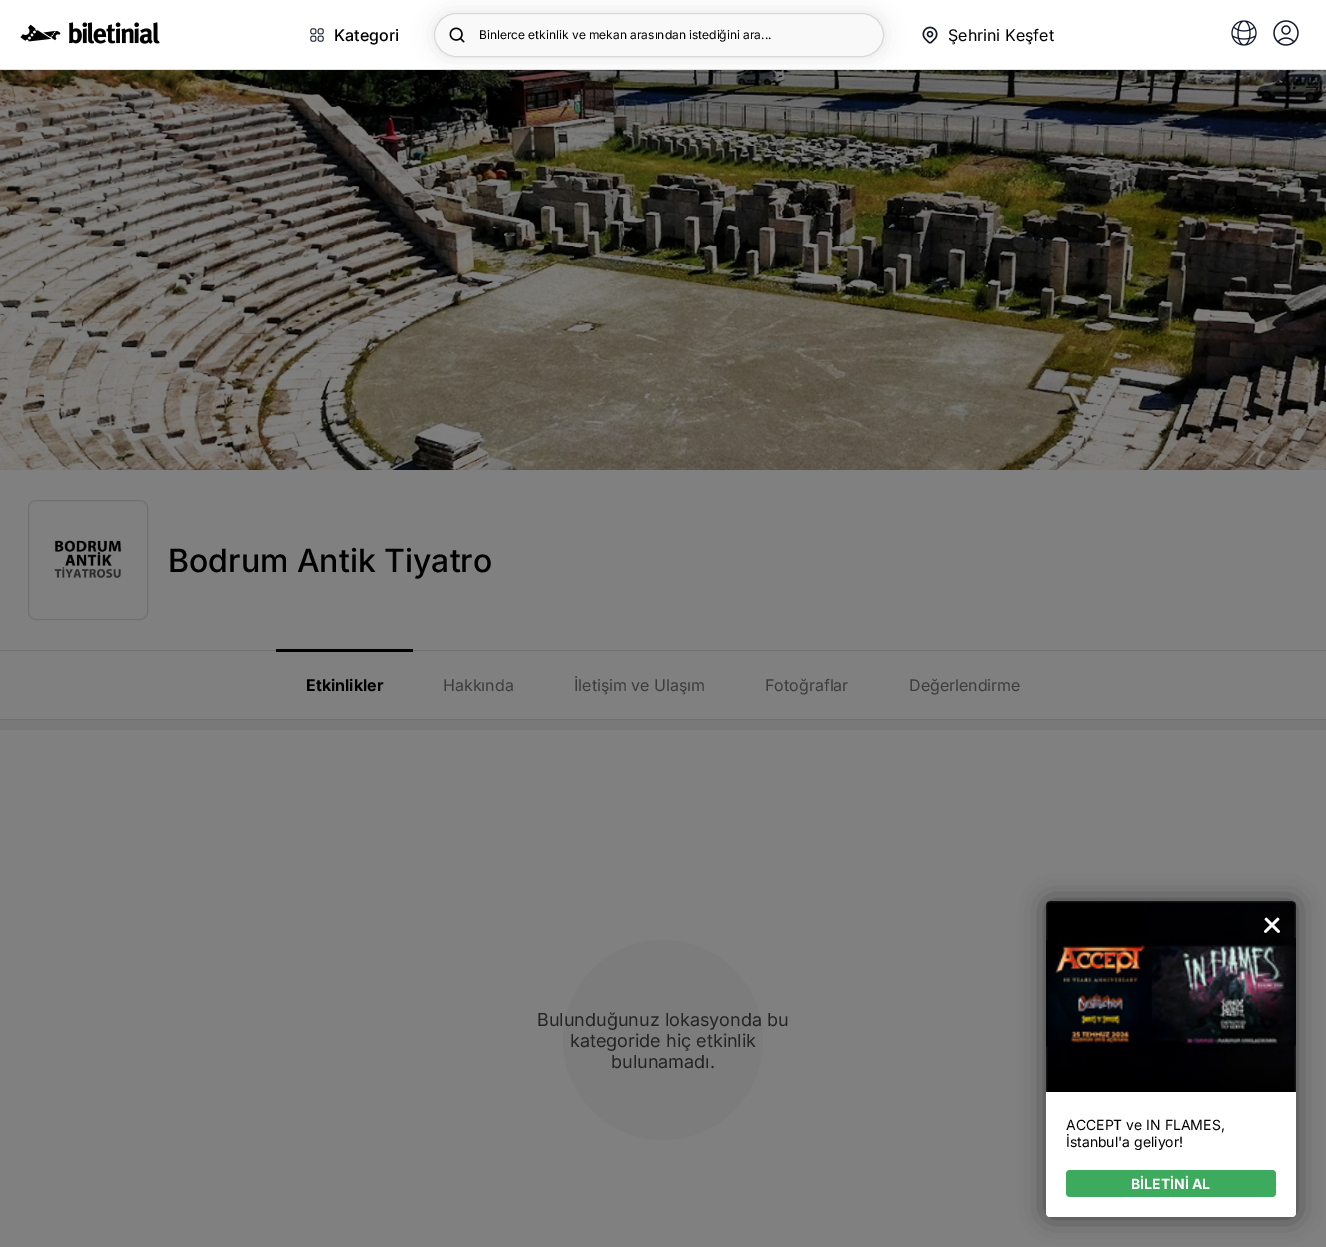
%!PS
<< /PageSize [1326 1247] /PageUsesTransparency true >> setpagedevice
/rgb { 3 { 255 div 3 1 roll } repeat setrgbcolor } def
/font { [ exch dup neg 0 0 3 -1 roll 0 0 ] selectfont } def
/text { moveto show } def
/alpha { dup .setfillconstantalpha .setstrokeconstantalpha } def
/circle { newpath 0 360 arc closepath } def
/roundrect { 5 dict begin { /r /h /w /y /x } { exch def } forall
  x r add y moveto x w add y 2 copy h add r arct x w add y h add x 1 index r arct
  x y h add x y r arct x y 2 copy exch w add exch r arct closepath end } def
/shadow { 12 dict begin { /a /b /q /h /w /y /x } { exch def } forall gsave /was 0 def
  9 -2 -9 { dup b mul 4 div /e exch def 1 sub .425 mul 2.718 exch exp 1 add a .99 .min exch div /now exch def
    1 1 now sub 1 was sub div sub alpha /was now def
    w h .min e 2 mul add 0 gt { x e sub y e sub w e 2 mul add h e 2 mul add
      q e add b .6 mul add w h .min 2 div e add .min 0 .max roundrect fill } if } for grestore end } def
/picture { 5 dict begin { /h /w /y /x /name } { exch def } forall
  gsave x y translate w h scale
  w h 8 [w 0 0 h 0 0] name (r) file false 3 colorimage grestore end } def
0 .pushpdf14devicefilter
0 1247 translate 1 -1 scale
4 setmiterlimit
128 128 128 rgb
0 0 1326 1247 rectfill
(img_07.rgb) 0 70 1326 400 picture
0 0 0 rgb
0 0 1326 70 0 10 0.15 shadow
255 255 255 rgb
0 0 1326 69 rectfill
225 225 225 rgb
0 69 1326 1 rectfill
(img_01.rgb) 20 22 140 22 picture
(img_02.rgb) 310 28 14 14 picture
0 0 0 rgb
434 13 450 44 22 10 0.1 shadow
249 249 249 rgb
434.5 13.5 449 43 21.5 roundrect gsave fill grestore
217 217 217 rgb
stroke
(img_03.rgb) 449 27 16 16 picture
(img_04.rgb) 922 26 16 18 picture
(img_05.rgb) 1231 20 26 26 picture
(img_06.rgb) 1273 20 26 26 picture
112 112 112 rgb
28.5 500.5 119 119 7.5 roundrect stroke
(img_08.rgb) 54 540 68 38 picture
0 650 1326 1 rectfill
0 719 1326 1 rectfill
0 0 0 rgb
276 649 137 3 rectfill
121 121 121 rgb
0 720 1326 10 rectfill
124 124 124 rgb
663 1040 100 circle fill
0 0 0 rgb
1046 901 250 316 4 12.5 0.5 shadow
255 255 255 rgb
1046 901 250 316 4 roundrect fill
(img_09.rgb) 1046 901 250 191 picture
(img_10.rgb) 1264 917 16 16 picture
61 171 93 rgb
1066 1170 210 27 4 roundrect fill
/Inter-Medium 16 font
0 0 0 rgb
(Kategori) 334 41 text
/Inter-Regular 12 font
(Binlerce etkinlik ve mekan arasından istediğini ara...) 479 39 text
/Inter-Regular 16 font
(Şehrini Keşfet) 948 41 text
/Inter-Medium 32 font
(Bodrum Antik Tiyatro) 168 572 text
/Inter-Bold 16 font
(Etkinlikler) 306 691 text
/Inter-Regular 16 font
60 60 60 rgb
(Hakkında) 443 691 text
(İletişim ve Ulaşım) 574 691 text
(Fotoğraflar) 765 691 text
(Değerlendirme) 909 691 text
/Inter-Regular 18 font
36 36 36 rgb
(Bulunduğunuz lokasyonda bu) 537 1026 text
(kategoride hiç etkinlik) 570 1047 text
(bulunamadı.) 611 1068 text
/Inter-Regular 14 font
0 0 0 rgb
(ACCEPT ve IN FLAMES,) 1066 1130 text
(İstanbul'a geliyor!) 1066 1147 text
/Inter-Bold 14 font
255 255 255 rgb
(BİLETİNİ AL) 1131 1189 text
.poppdf14devicefilter showpage
